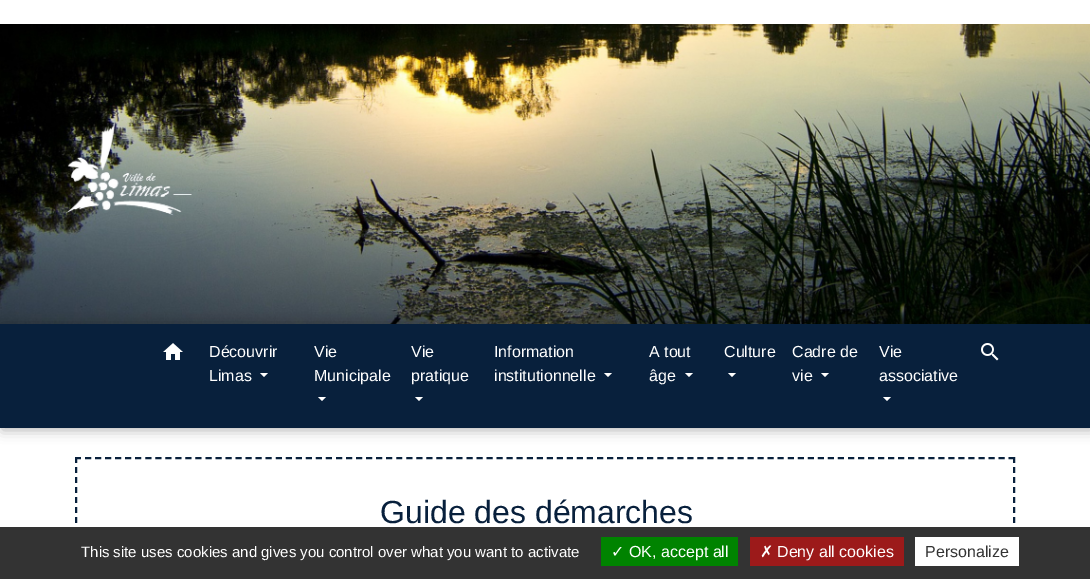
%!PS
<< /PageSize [1090 579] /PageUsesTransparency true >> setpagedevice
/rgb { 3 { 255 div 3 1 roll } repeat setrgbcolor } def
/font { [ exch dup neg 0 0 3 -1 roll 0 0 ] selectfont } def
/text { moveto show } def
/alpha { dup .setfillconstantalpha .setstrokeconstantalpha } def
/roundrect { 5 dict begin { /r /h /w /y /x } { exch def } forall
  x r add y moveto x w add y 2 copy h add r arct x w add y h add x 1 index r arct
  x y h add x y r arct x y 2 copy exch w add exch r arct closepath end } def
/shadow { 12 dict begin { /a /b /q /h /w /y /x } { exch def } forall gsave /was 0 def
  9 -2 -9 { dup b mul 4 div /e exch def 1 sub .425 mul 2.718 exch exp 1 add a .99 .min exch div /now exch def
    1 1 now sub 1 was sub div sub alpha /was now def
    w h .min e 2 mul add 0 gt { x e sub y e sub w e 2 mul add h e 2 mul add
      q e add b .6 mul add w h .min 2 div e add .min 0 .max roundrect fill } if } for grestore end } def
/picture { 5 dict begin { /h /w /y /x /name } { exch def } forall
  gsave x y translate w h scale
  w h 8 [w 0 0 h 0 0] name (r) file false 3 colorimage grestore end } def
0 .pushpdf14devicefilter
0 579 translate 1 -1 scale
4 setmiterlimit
255 255 255 rgb
0 0 1090 579 rectfill
(img_01.rgb) 0 24 1090 300 picture
0 0 0 rgb
2 326 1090 104 0 6.5 0.3 shadow
8 32 60 rgb
0 324 1090 104 rectfill
(img_02.rgb) 163 343 20 17 picture
255 255 255 rgb
260 373 moveto 8 0 rlineto -4 4 rlineto closepath fill
318 397 moveto 8 0 rlineto -4 4 rlineto closepath fill
415 397 moveto 8 0 rlineto -4 4 rlineto closepath fill
604 373 moveto 8 0 rlineto -4 4 rlineto closepath fill
685 373 moveto 8 0 rlineto -4 4 rlineto closepath fill
728 373 moveto 8 0 rlineto -4 4 rlineto closepath fill
821 373 moveto 8 0 rlineto -4 4 rlineto closepath fill
883 397 moveto 8 0 rlineto -4 4 rlineto closepath fill
(img_03.rgb) 981 343 18 18 picture
8 32 60 rgb
2 setlinewidth
[6 4.04] 0 setdash
75 458 moveto 940 0 rlineto stroke
[6 4] 0 setdash
1014 457 moveto 0 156 rlineto stroke
76 457 moveto 0 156 rlineto stroke
51 51 51 rgb
0 527 1090 52 rectfill
0 131 0 rgb
601 537 137 29 rectfill
156 26 26 rgb
750 537 154 29 rectfill
255 255 255 rgb
915 537 104 29 rectfill
/LiberationSans-Regular 16 font
(Découvrir) 209 357 text
(Limas) 209 381 text
(Vie) 314 357 text
(Municipale) 314 381 text
(Vie) 411 357 text
(pratique) 411 381 text
(Information) 494 357 text
(institutionnelle) 494 381 text
(A tout) 649 357 text
(âge) 649 381 text
(Culture) 724 357 text
(Cadre de) 792 357 text
(vie) 792 381 text
(Vie) 879 357 text
(associative) 879 381 text
/LiberationSans-Regular 32 font
8 32 60 rgb
(Guide des démarches) 380 523 text
/LiberationSans-Regular 15 font
255 255 255 rgb
(This site uses cookies and gives you control over what you want to activate) 81 557 text
/DejaVuSans-Regular 16 font
(✓) 611 557 text
/LiberationSans-Regular 16 font
(OK, accept all) 629 557 text
/DejaVuSans-Regular 16 font
(✗) 760 557 text
/LiberationSans-Regular 16 font
(Deny all cookies) 777 557 text
51 51 51 rgb
(Personalize) 925 557 text
.poppdf14devicefilter showpage
